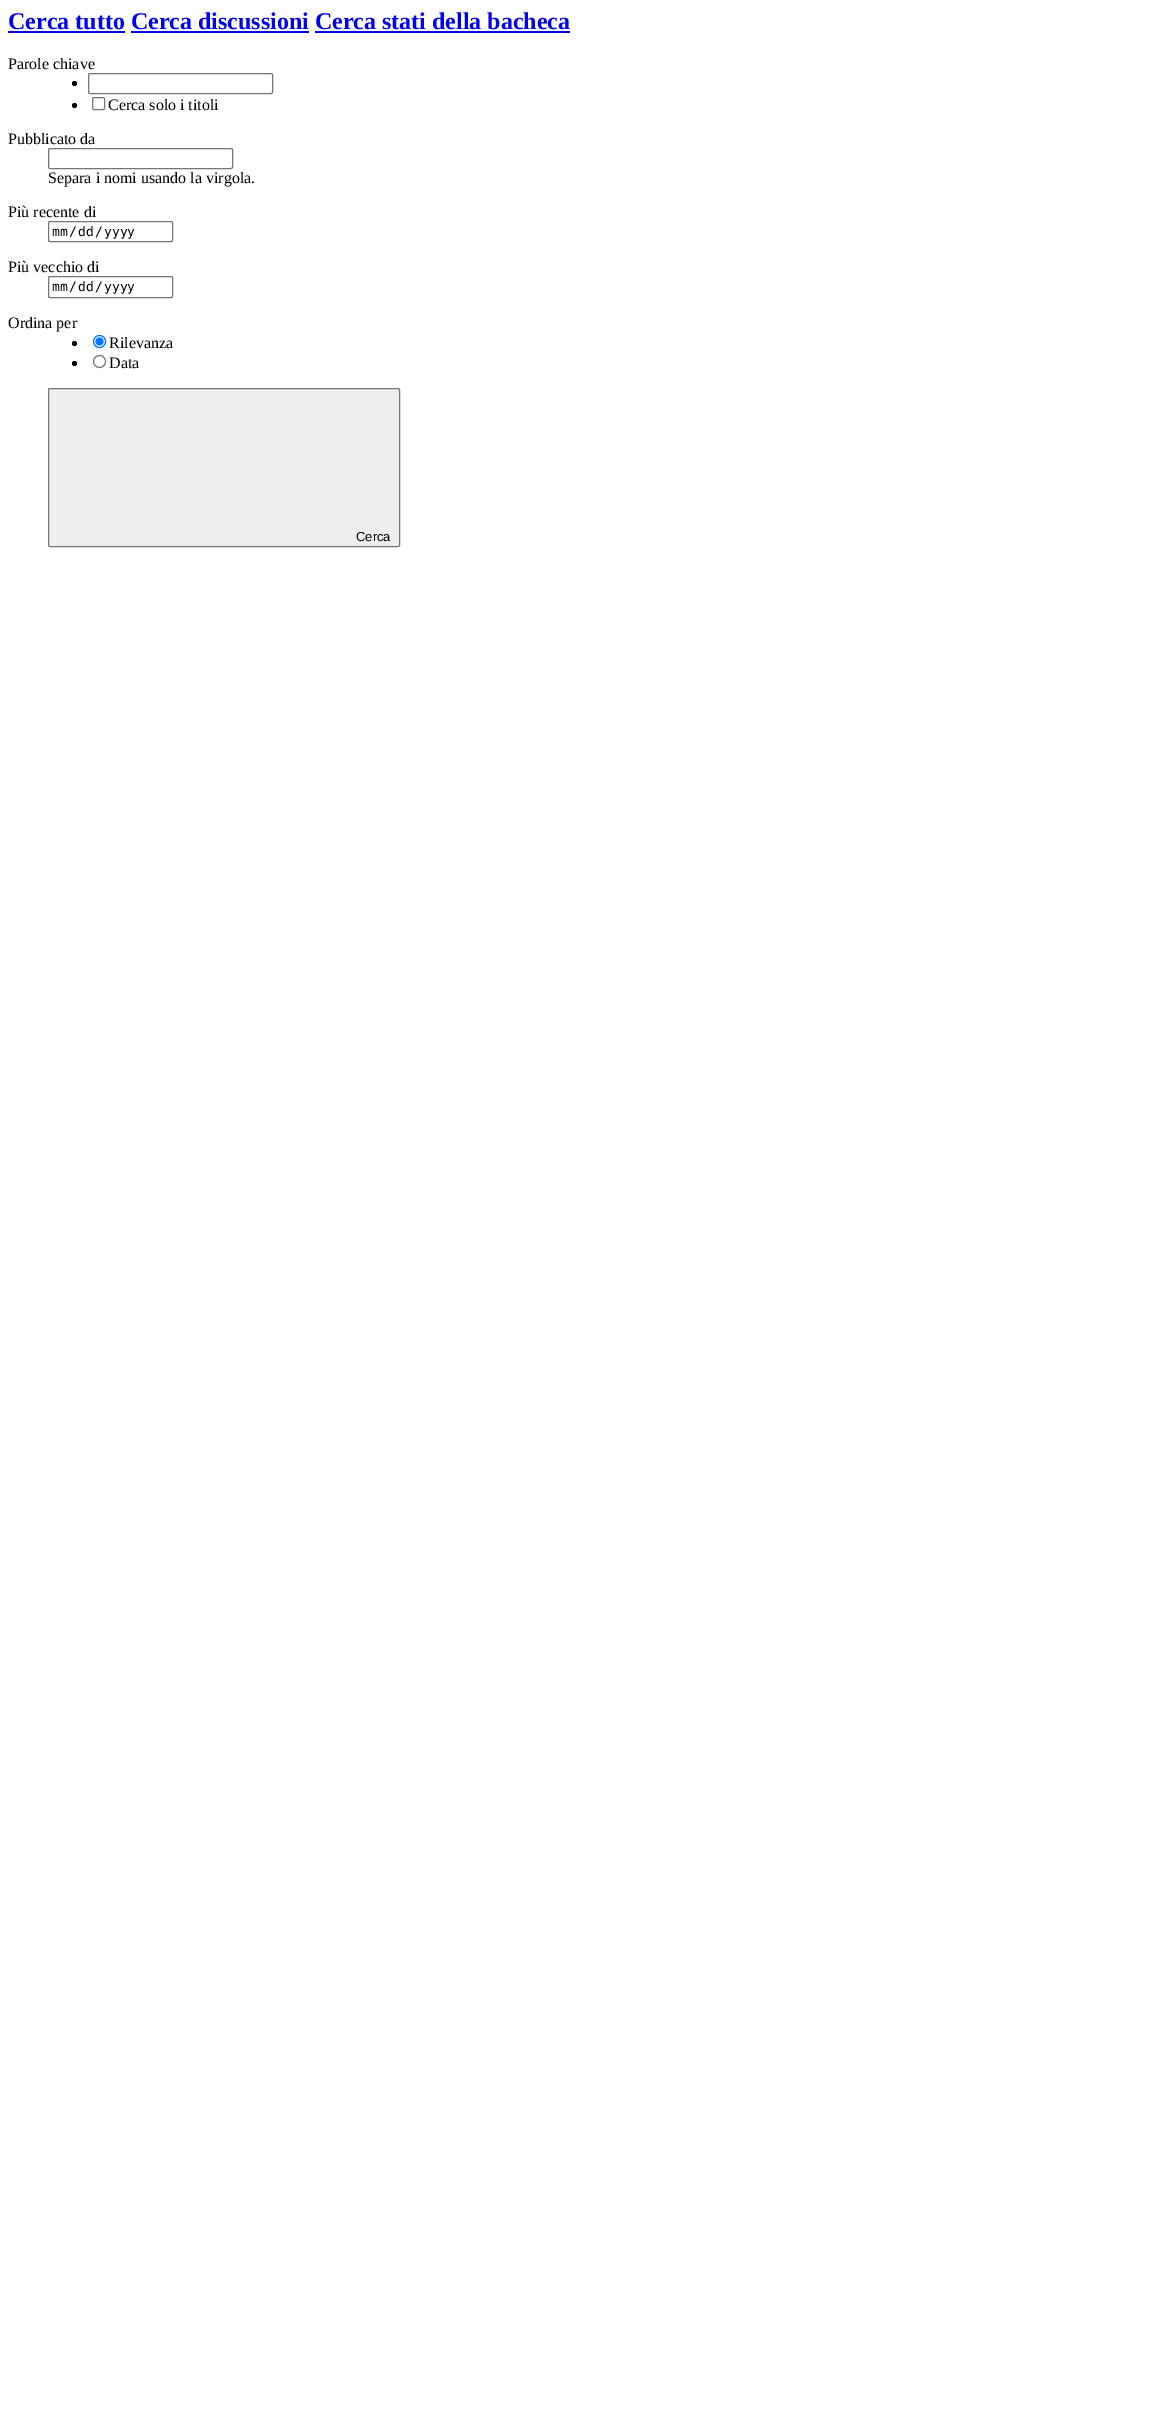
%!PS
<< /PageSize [1165 2418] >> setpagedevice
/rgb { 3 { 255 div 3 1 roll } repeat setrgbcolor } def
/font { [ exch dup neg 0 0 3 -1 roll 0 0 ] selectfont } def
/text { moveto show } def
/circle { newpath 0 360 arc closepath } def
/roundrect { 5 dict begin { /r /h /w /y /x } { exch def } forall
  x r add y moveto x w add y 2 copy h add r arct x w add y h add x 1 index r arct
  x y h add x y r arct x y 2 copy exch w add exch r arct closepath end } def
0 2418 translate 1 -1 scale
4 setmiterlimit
255 255 255 rgb
0 0 1165 2418 rectfill
0 0 238 rgb
8 31 117 2 rectfill
131 31 178 2 rectfill
315 31 255 2 rectfill
0 0 0 rgb
74.5 83.5 2.5 circle fill
118 118 118 rgb
88.5 73.5 184 20 1.5 roundrect stroke
0 0 0 rgb
74.5 105.5 2.5 circle fill
118 118 118 rgb
92.5 97.5 12 12 1.5 roundrect stroke
48.5 148.5 184 20 1.5 roundrect stroke
48.5 221.5 124 20 1.5 roundrect stroke
48.5 276.5 124 21 1.5 roundrect stroke
0 0 0 rgb
74.5 343.5 2.5 circle fill
0 117 255 rgb
99.5 341.5 6 circle stroke
99.5 341.5 4 circle fill
0 0 0 rgb
74.5 363.5 2.5 circle fill
118 118 118 rgb
99.5 361.5 6 circle stroke
239 239 239 rgb
48.5 388.5 351 158 1.5 roundrect gsave fill grestore
118 118 118 rgb
stroke
/LiberationSerif-Bold 24 font
0 0 238 rgb
(Cerca tutto Cerca discussioni Cerca stati della bacheca) 8 29 text
/LiberationSerif-Regular 16 font
0 0 0 rgb
(Parole chiave) 8 69 text
(Cerca solo i titoli) 108 110 text
(Pubblicato da) 8 144 text
(Separa i nomi usando la virgola.) 48 183 text
(Più recente di) 8 217 text
/DejaVuSansMono-Regular 13 font
(mm) 52 236 text
(/) 69 236 text
(dd) 78 236 text
(/) 95 236 text
(yyyy) 104 236 text
/LiberationSerif-Regular 16 font
(Più vecchio di) 8 272 text
/DejaVuSansMono-Regular 13 font
(mm) 52 291 text
(/) 69 291 text
(dd) 78 291 text
(/) 95 291 text
(yyyy) 104 291 text
/LiberationSerif-Regular 16 font
(Ordina per) 8 328 text
(Rilevanza) 109 348 text
(Data) 109 368 text
/LiberationSans-Regular 13 font
(Cerca) 356 541 text
showpage
